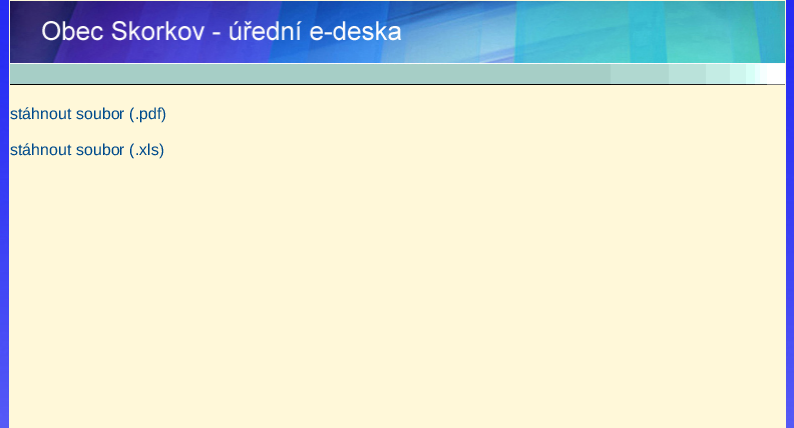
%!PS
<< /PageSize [794 428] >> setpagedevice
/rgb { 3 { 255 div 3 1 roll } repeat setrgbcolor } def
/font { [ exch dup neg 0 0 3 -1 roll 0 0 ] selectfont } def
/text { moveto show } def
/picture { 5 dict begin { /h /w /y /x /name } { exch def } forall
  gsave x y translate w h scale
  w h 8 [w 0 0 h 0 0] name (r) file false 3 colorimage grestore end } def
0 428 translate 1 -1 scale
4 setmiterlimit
255 255 255 rgb
0 0 794 428 rectfill
(img_01.rgb) 0 0 794 428 picture
255 248 217 rgb
9 0 777 428 rectfill
(img_02.rgb) 10 1 775 84 picture
/LiberationSans-Regular 16 font
0 75 140 rgb
(stáhnout soubor \(.pdf\)) 10 119 text
(stáhnout soubor \(.xls\)) 10 155 text
showpage
